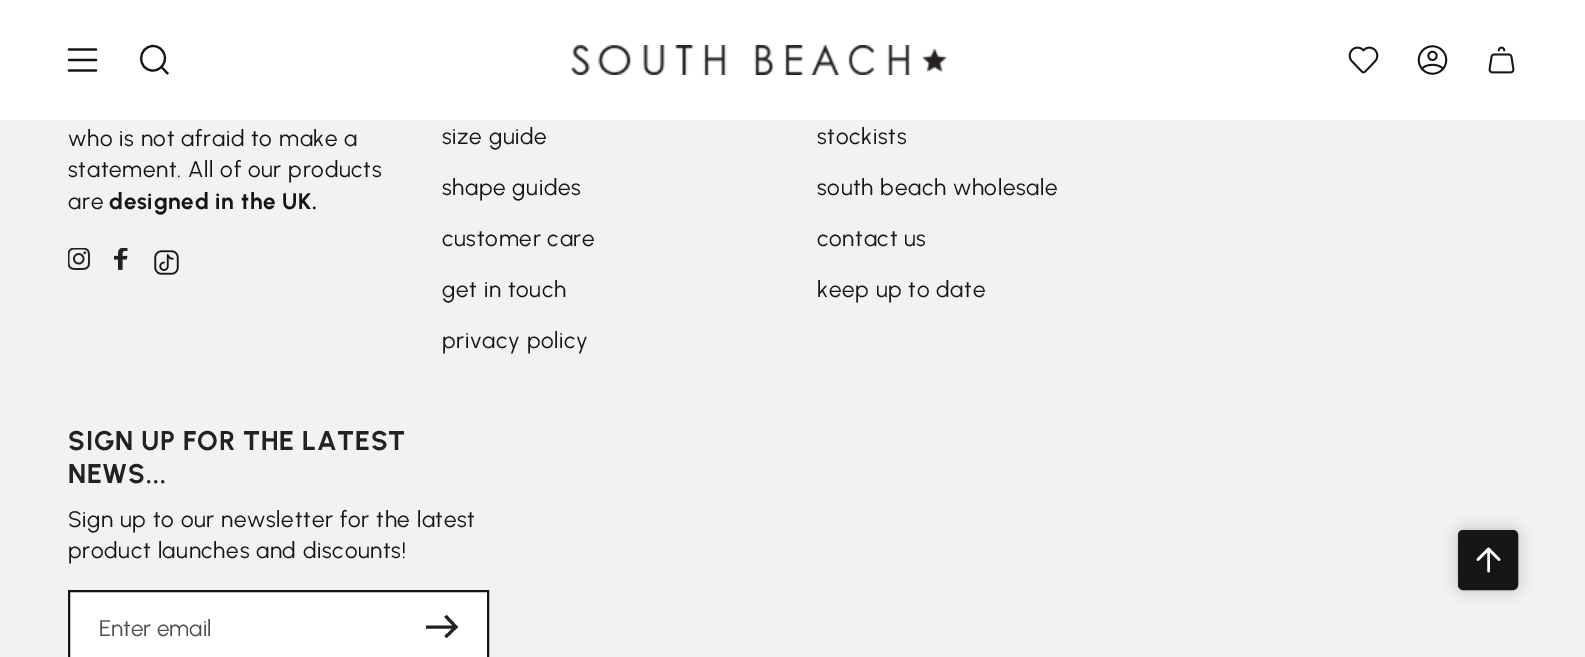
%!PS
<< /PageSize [1585 657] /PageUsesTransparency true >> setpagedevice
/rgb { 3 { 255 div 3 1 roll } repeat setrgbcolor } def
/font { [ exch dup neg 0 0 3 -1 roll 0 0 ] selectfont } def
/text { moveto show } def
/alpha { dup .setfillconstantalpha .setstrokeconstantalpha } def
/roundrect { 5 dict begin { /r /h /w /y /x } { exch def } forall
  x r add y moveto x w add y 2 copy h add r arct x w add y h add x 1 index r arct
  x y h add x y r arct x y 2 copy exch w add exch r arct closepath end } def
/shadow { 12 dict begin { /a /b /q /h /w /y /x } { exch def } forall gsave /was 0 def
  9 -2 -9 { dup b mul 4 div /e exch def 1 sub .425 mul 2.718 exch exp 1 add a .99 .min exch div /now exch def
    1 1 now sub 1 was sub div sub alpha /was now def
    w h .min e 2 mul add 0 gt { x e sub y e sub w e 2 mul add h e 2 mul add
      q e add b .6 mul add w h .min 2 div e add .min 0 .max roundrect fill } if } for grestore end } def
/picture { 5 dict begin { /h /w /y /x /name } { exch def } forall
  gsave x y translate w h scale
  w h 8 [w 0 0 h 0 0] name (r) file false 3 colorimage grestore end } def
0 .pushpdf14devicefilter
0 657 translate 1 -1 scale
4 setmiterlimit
242 242 242 rgb
0 0 1585 657 rectfill
255 255 255 rgb
0 0 1585 120 rectfill
22 22 22 rgb
2.2 setlinewidth
1 setlinecap
1 setlinejoin
69 49.5 moveto 27 0 rlineto 69 60 moveto 27 0 rlineto 69 70.5 moveto 27 0 rlineto stroke
2.1 setlinewidth
0 setlinecap
0 setlinejoin
153 46 moveto 11.5 0 16.5 15 7 22 rcurveto -2 2 -5 2.5 -7.5 2.5 rcurveto -15.5 -0.5 -15 -24 0.5 -24.5 rcurveto closepath 161.5 67 moveto 6.5 7 rlineto stroke
(img_01.rgb) 571 45 376 30 picture
(img_02.rgb) 1348 46 31 28 picture
(img_03.rgb) 1417 45 31 30 picture
(img_04.rgb) 1488 46 27 28 picture
(img_05.rgb) 68 248 22 22 picture
(img_06.rgb) 114 248 14 22 picture
(img_07.rgb) 154 250 25 25 picture
255 255 255 rgb
69 591 moveto 419 0 rlineto 0 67 rlineto -419 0 rlineto closepath gsave fill grestore
22 22 22 rgb
2 setlinewidth
stroke
34 34 34 rgb
3 setlinewidth
445.5 616 moveto 10.5 11 rlineto -10.5 10 rlineto 454.5 627 moveto -28.5 0 rlineto stroke
0 0 0 rgb
1458 530 60 60 5 7.5 0.2 shadow
22 22 22 rgb
1459 531 58 58 4 roundrect gsave fill grestore
2 setlinewidth
stroke
255 255 255 rgb
2.6 setlinewidth
1 setlinecap
1 setlinejoin
1488.5 571 moveto 0 -22 rlineto 1488.5 549 moveto 10.5 10.5 rlineto 1488.5 549 moveto -10.5 10.5 rlineto stroke
/Urbanist-Regular 22.5 font
22 22 22 rgb
68 146 moveto 0.7 0 (who is not afraid to make a) ashow
68 177 moveto 0.7 0 (statement. All of our products) ashow
68 209 moveto 0.7 0 (are) ashow
/Urbanist-Bold 22.5 font
109 209 moveto 0.7 0 (designed in the UK.) ashow
/Urbanist-Regular 22.5 font
442 144 moveto 0.7 0 (size guide) ashow
442 195 moveto 0.7 0 (shape guides) ashow
442 246 moveto 0.7 0 (customer care) ashow
442 297 moveto 0.7 0 (get in touch) ashow
442 348 moveto 0.7 0 (privacy policy) ashow
817 144 moveto 0.7 0 (stockists) ashow
817 195 moveto 0.7 0 (south beach wholesale) ashow
817 246 moveto 0.7 0 (contact us) ashow
817 297 moveto 0.7 0 (keep up to date) ashow
/Urbanist-Bold 27 font
34 34 34 rgb
68 450 moveto 0.75 0 (SIGN UP FOR THE LATEST) ashow
68 483 moveto 0.75 0 (NEWS...) ashow
/Urbanist-Regular 22.5 font
22 22 22 rgb
68 527 moveto 0.7 0 (Sign up to our newsletter for the latest) ashow
68 558 moveto 0.7 0 (product launches and discounts!) ashow
80 80 80 rgb
(Enter email) 99 636 text
.poppdf14devicefilter showpage
